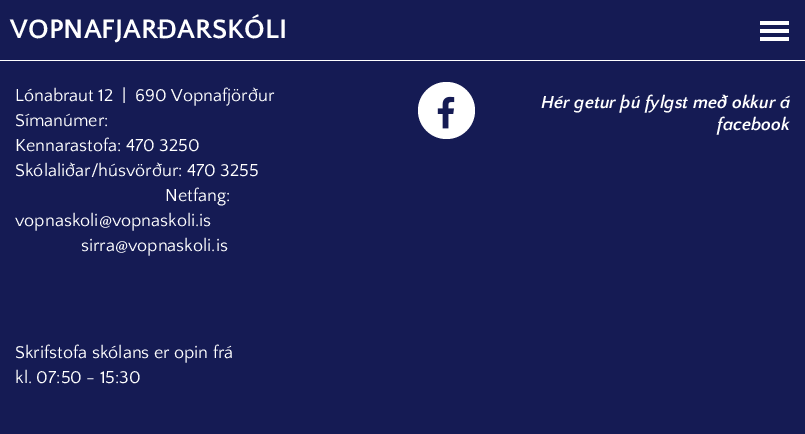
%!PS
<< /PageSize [805 434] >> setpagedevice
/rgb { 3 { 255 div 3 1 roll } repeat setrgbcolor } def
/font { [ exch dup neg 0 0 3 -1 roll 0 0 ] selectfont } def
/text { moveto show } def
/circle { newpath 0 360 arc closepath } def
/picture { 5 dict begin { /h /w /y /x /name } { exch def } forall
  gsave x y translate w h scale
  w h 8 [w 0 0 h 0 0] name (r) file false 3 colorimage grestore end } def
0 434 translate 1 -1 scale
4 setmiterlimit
21 27 84 rgb
0 0 805 434 rectfill
255 255 255 rgb
0 60 805 1 rectfill
760 21 29 4 rectfill
760 29 29 4 rectfill
760 37 29 4 rectfill
446.5 110.5 28.5 circle fill
(img_01.rgb) 437 96 18 33 picture
/QuattrocentoSans-Bold 28 font
(VOPNAFJARÐARSKÓLI) 10 38 text
/QuattrocentoSans-Regular 18 font
(Lónabraut 12  |  690 Vopnafjörður) 15 101 text
(Símanúmer:) 15 126 text
(Kennarastofa: 470 3250) 15 151 text
(Skólaliðar/húsvörður: 470 3255) 15 176 text
(Netfang:) 165 201 text
(vopnaskoli@vopnaskoli.is) 15 226 text
(sirra@vopnaskoli.is) 81 251 text
(Skrifstofa skólans er opin frá) 15 358 text
(kl. 07:50 - 15:30) 15 383 text
/QuattrocentoSans-BoldItalic 18 font
(Hér getur þú fylgst með okkur á) 541 108 text
(facebook) 717 130 text
showpage
